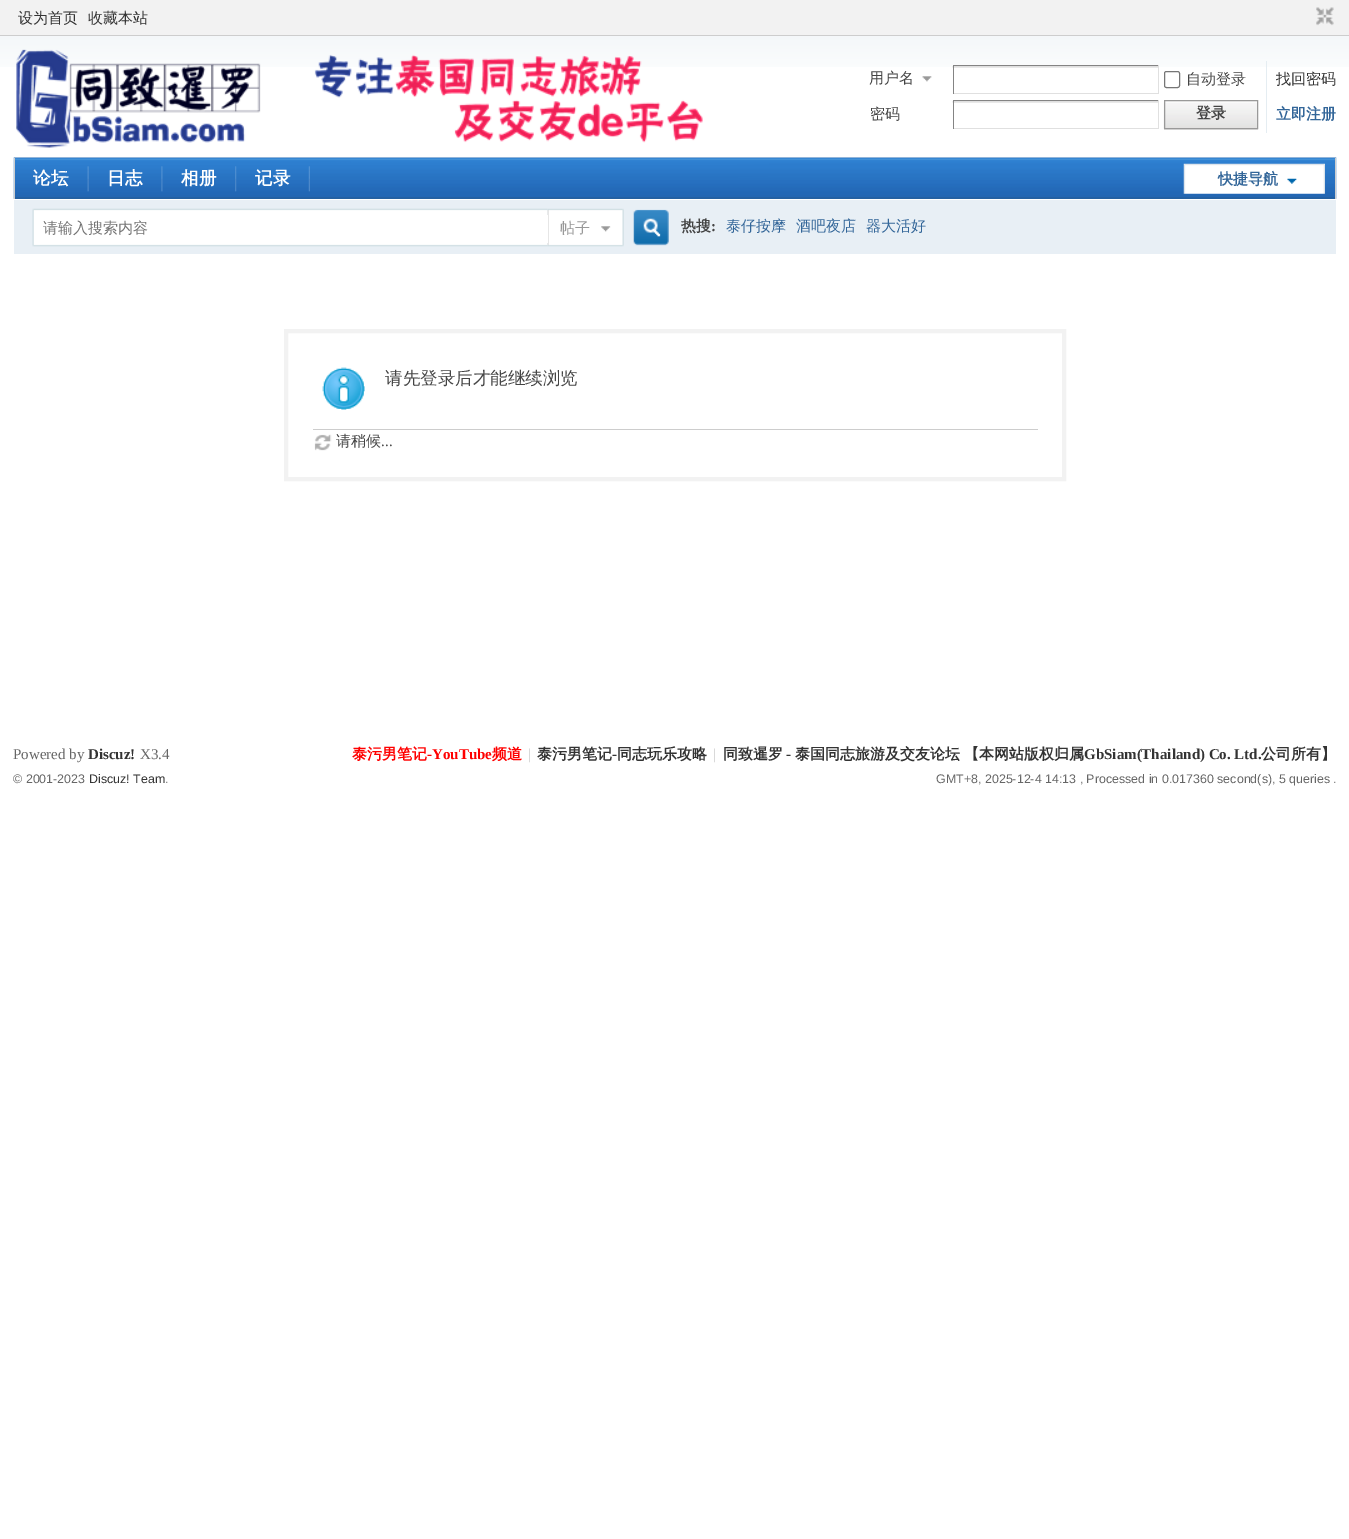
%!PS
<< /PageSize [1349 1539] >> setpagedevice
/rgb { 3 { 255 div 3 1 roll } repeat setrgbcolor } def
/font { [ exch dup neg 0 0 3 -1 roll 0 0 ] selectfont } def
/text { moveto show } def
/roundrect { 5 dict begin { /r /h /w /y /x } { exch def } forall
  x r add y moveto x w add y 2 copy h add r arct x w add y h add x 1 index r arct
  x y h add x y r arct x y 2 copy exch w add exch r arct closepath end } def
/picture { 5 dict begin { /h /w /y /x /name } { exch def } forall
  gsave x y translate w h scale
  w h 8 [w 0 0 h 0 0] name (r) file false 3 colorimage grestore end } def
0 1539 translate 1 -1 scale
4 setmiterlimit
255 255 255 rgb
0 0 1349 1539 rectfill
(img_01.rgb) 0 36 1349 31 picture
242 242 242 rgb
0 0 1349 35 rectfill
205 205 205 rgb
0 35 1349 1 rectfill
(img_02.rgb) 1316 7 18 19 picture
(img_03.rgb) 16 49 687 99 picture
(img_04.rgb) 922 76 10 6 picture
255 255 255 rgb
954 66 204 1 rectfill
(img_05.rgb) 952 66 206 2 picture
132 132 132 rgb
953 65 206 1 rectfill
224 224 224 rgb
1158 65 1 29 rectfill
953 93 206 1 rectfill
132 132 132 rgb
953 65 1 29 rectfill
118 118 118 rgb
1164.5 71.5 15 16 2 roundrect stroke
(img_06.rgb) 952 101 206 2 picture
132 132 132 rgb
953 100 206 1 rectfill
224 224 224 rgb
1158 100 1 29 rectfill
953 128 206 1 rectfill
132 132 132 rgb
953 100 1 29 rectfill
229 237 242 rgb
1266 61 1 72 rectfill
229 229 229 rgb
1164 129 moveto 0 1 rlineto 94 0 rlineto 0 -29 rlineto 0 28 rlineto closepath fill
(img_07.rgb) 1163 101 94 28 picture
153 153 153 rgb
1164.5 100.5 93 28 rectstroke
(img_08.rgb) 13 157 1324 42 picture
205 205 205 rgb
1335 158 1 41 rectfill
14 158 1 41 rectfill
(img_09.rgb) 87 166 2 26 picture
(img_10.rgb) 161 166 2 26 picture
(img_11.rgb) 235 166 2 26 picture
(img_12.rgb) 308 166 2 26 picture
(img_13.rgb) 1183 163 142 31 picture
232 239 245 rgb
14 200 1322 54 rectfill
(img_14.rgb) 32 208 8 39 picture
(img_15.rgb) 40 208 508 39 picture
(img_16.rgb) 547 208 77 39 picture
255 255 255 rgb
547 215 1 28 rectfill
(img_17.rgb) 633 209 36 37 picture
242 242 242 rgb
4 setlinewidth
286 331 778 148 rectstroke
(img_18.rgb) 322 367 43 43 picture
205 205 205 rgb
313 429 725 1 rectfill
(img_19.rgb) 314 434 18 17 picture
/WenQuanYiZenHei-Medium 15 font
51 51 51 rgb
(设为首页) 18 23 text
(收藏本站) 88 23 text
68 68 68 rgb
(用户名) 869 83 text
(自动登录) 1186 84 text
51 51 51 rgb
(找回密码) 1276 84 text
68 68 68 rgb
(密码) 870 119 text
/WenQuanYiZenHei-Bold 15 font
(登录) 1196 118 text
51 102 153 rgb
(立即注册) 1276 119 text
/WenQuanYiZenHei-Bold 17.5 font
255 255 255 rgb
(论坛) 33 184 text
(日志) 107 184 text
(相册) 181 184 text
(记录) 255 184 text
/WenQuanYiZenHei-Bold 15 font
51 102 153 rgb
(快捷导航) 1218 184 text
/WenQuanYiZenHei-Medium 15 font
117 117 117 rgb
(请输入搜索内容) 43 233 text
153 153 153 rgb
(帖子) 560 233 text
/WenQuanYiZenHei-Bold 15 font
68 68 68 rgb
(热搜) 681 231 text
/LiberationSerif-Bold 15 font
(:) 711 231 text
/WenQuanYiZenHei-Medium 15 font
51 102 153 rgb
(泰仔按摩) 726 231 text
(酒吧夜店) 796 231 text
(器大活好) 866 231 text
/WenQuanYiZenHei-Medium 17.5 font
68 68 68 rgb
(请先登录后才能继续浏览) 385 384 text
/WenQuanYiZenHei-Medium 15 font
(请稍候) 336 446 text
/LiberationSerif-Regular 15 font
(...) 381 446 text
102 102 102 rgb
(Powered by) 13 759 text
/LiberationSerif-Bold 15 font
51 51 51 rgb
(Discuz!) 88 759 text
/LiberationSerif-Regular 15 font
102 102 102 rgb
(X3.4) 140 759 text
/LiberationSans-Regular 12.45 font
(© 2001-2023) 13 783 text
51 51 51 rgb
(Discuz! Team) 89 783 text
102 102 102 rgb
(.) 165 783 text
/WenQuanYiZenHei-Bold 15 font
255 0 0 rgb
(泰污男笔记) 352 759 text
/LiberationSerif-Bold 15 font
(-YouTube) 427 759 text
/WenQuanYiZenHei-Bold 15 font
(频道) 492 759 text
/LiberationSerif-Regular 15 font
204 204 204 rgb
(|) 528 759 text
/WenQuanYiZenHei-Bold 15 font
51 51 51 rgb
(泰污男笔记) 537 759 text
/LiberationSerif-Bold 15 font
(-) 612 759 text
/WenQuanYiZenHei-Bold 15 font
(同志玩乐攻略) 617 759 text
/LiberationSerif-Regular 15 font
204 204 204 rgb
(|) 713 759 text
/WenQuanYiZenHei-Bold 15 font
51 51 51 rgb
(同致暹罗) 723 759 text
/LiberationSerif-Bold 15 font
(-) 786 759 text
/WenQuanYiZenHei-Bold 15 font
(泰国同志旅游及交友论坛) 795 759 text
(【本网站版权归属) 964 759 text
/LiberationSerif-Bold 15 font
(GbSiam\(Thailand\) Co. Ltd.) 1084 759 text
/WenQuanYiZenHei-Bold 15 font
(公司所有】) 1261 759 text
/LiberationSans-Regular 12.45 font
102 102 102 rgb
(GMT+8, 2025-12-4 14:13 , Processed in 0.017360 second\(s\), 5 queries .) 936 783 text
showpage
